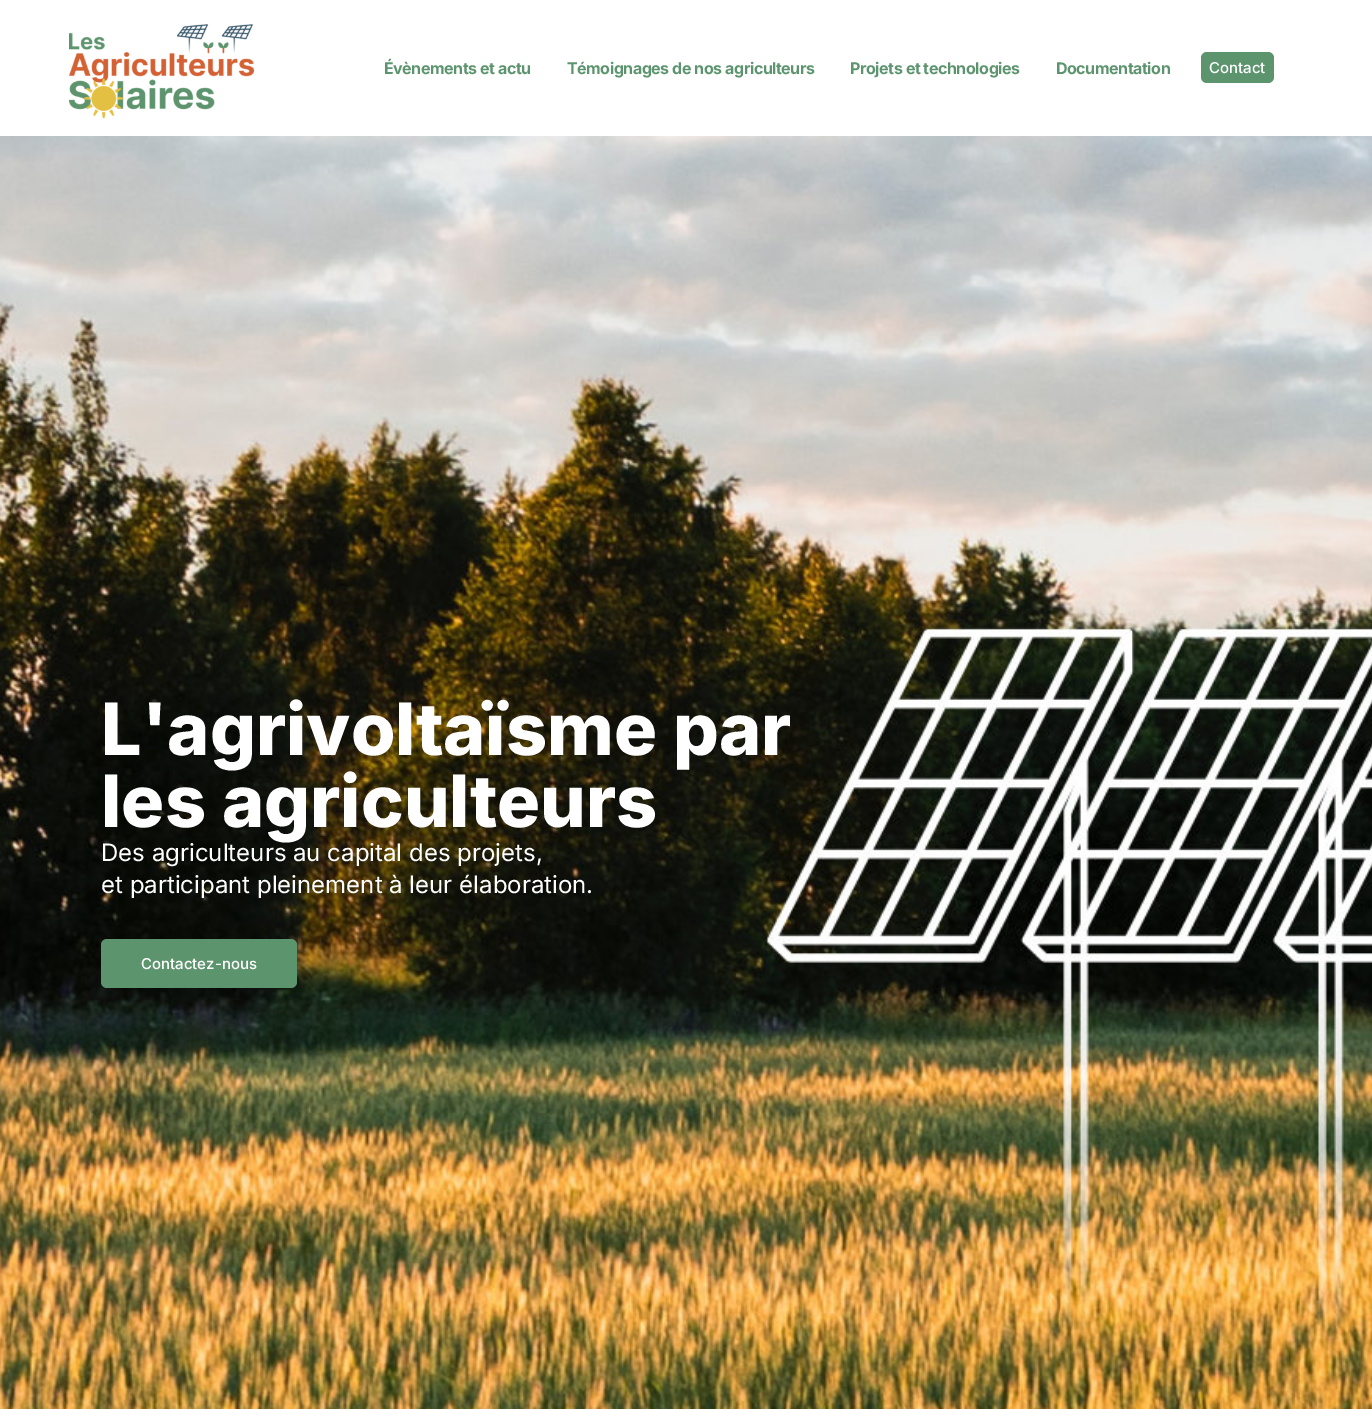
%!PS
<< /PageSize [1372 1409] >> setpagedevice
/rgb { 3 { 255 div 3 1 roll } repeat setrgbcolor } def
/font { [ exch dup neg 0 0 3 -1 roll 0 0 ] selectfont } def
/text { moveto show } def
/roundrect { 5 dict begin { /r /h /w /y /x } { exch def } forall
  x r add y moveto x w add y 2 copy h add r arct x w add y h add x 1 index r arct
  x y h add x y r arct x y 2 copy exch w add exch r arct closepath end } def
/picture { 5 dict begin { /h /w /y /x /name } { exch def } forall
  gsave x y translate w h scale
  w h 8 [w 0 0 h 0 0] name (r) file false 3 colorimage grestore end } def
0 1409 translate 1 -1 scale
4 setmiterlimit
255 255 255 rgb
0 0 1372 1409 rectfill
(img_01.rgb) 69 24 185 95 picture
92 148 110 rgb
1201 52 73 31 6 roundrect fill
(img_02.rgb) 0 136 1372 1273 picture
101 939 196 49 6 roundrect fill
/Inter-Bold 16 font
384 74 moveto -0.45 0 (Évènements et actu) ashow
567 74 moveto -0.45 0 (Témoignages de nos agriculteurs) ashow
850 74 moveto -0.45 0 (Projets et technologies) ashow
1056 74 moveto -0.45 0 (Documentation) ashow
/Inter-Medium 15 font
255 255 255 rgb
(Contact) 1209 73 text
/Inter-ExtraBold 72 font
(L'agrivoltaïsme par) 101 755 text
(les agriculteurs) 101 827 text
/Inter-Regular 24 font
(Des agriculteurs au capital des projets,) 101 861 text
(et participant pleinement à leur élaboration.) 101 893 text
/Inter-Medium 15 font
(Contactez-nous) 141 969 text
showpage
